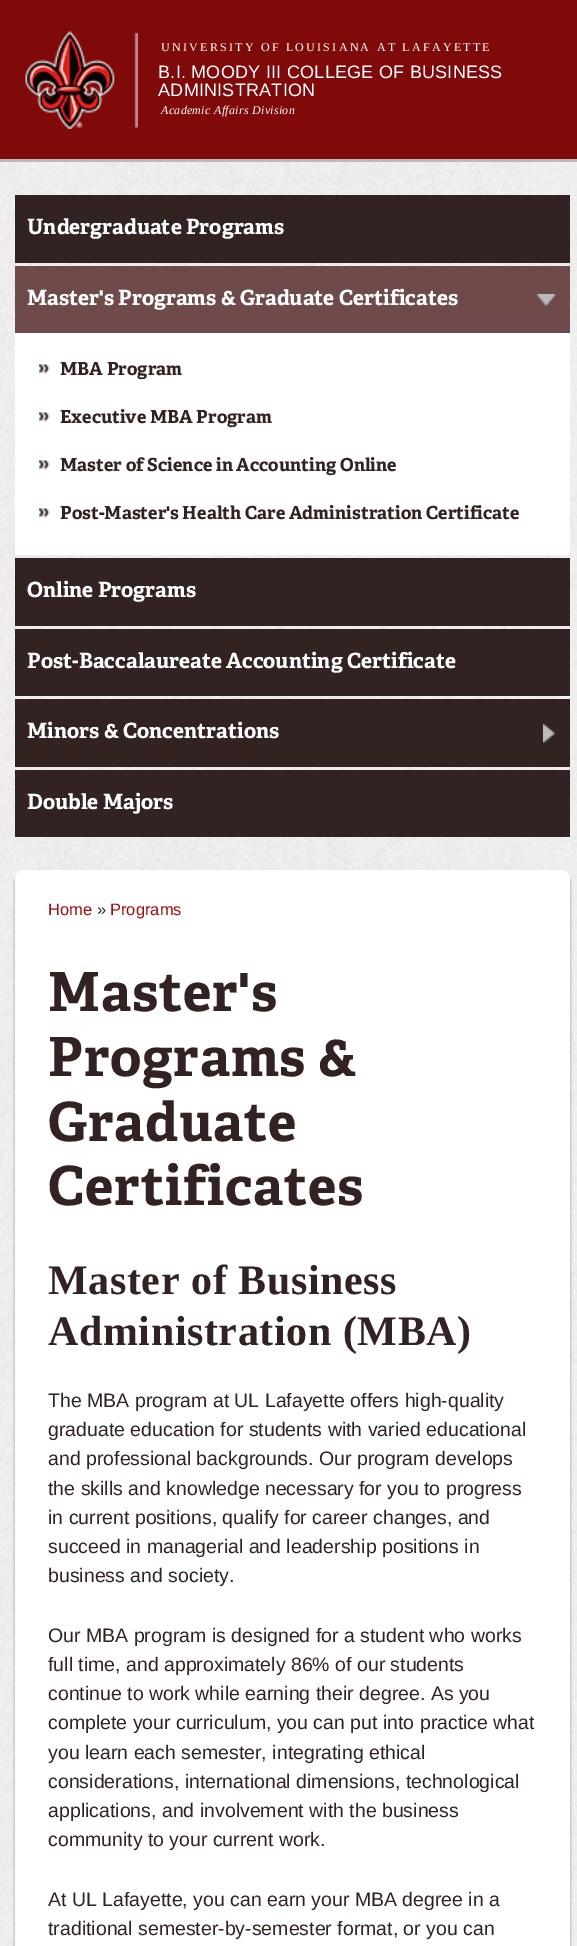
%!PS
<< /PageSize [577 1946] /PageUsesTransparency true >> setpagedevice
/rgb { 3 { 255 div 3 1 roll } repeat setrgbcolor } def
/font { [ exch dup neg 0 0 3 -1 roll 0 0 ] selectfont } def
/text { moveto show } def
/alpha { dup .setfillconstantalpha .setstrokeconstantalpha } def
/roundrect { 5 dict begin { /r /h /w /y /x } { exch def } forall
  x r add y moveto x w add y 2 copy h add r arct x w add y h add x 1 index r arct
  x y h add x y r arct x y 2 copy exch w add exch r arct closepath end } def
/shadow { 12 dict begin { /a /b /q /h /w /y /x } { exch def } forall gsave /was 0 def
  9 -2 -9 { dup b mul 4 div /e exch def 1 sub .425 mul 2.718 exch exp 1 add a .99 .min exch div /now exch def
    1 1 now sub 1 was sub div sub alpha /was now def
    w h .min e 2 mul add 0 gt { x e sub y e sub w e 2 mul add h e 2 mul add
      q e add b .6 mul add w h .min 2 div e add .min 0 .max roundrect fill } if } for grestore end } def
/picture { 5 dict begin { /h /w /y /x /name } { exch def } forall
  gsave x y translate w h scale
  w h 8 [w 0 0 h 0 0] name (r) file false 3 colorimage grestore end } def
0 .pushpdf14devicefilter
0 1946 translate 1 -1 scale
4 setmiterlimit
255 255 255 rgb
0 0 577 1946 rectfill
(img_01.rgb) 0 162 577 1784 picture
128 9 9 rgb
0 0 577 159 rectfill
189 185 185 rgb
0 159 577 3 rectfill
(img_02.rgb) 25 31 113 98 picture
51 34 34 rgb
15 195 555 68 rectfill
111 74 74 rgb
15 266 555 67 rectfill
(img_03.rgb) 537 294 19 12 picture
255 255 255 rgb
15 333 555 222 rectfill
(img_04.rgb) 39 364 11 10 picture
(img_04.rgb) 39 412 11 10 picture
(img_04.rgb) 39 460 11 10 picture
(img_04.rgb) 39 508 11 10 picture
51 34 34 rgb
15 558 555 68 rectfill
15 629 555 67 rectfill
15 699 555 68 rectfill
(img_05.rgb) 543 723 13 20 picture
15 770 555 67 rectfill
153 153 153 rgb
15 873 555 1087 9 1.5 1 shadow
255 255 255 rgb
15 870 555 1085 9 roundrect fill
/LiberationSerif-Regular 12 font
161 51 moveto 2.25 0 (UNIVERSITY OF LOUISIANA AT LAFAYETTE) ashow
/LiberationSans-Regular 18 font
158 78 moveto 0.25 0 (B.I. MOODY III COLLEGE OF BUSINESS) ashow
158 96 moveto 0.25 0 (ADMINISTRATION) ashow
/LiberationSerif-Italic 12 font
161 114 moveto 0.3 0 (Academic Affairs Division) ashow
/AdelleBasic-Bold 21 font
(Undergraduate Programs) 27 234 text
(Master's Programs & Graduate Certificates) 27 305 text
/AdelleBasic-Bold 18 font
51 34 34 rgb
(MBA Program) 60 375 text
(Executive MBA Program) 60 423 text
(Master of Science in Accounting Online) 60 471 text
(Post-Master's Health Care Administration Certificate) 60 519 text
/AdelleBasic-Bold 21 font
255 255 255 rgb
(Online Programs) 27 597 text
(Post-Baccalaureate Accounting Certificate) 27 668 text
(Minors & Concentrations) 27 738 text
(Double Majors) 27 809 text
/LiberationSans-Regular 16.5 font
160 11 11 rgb
(Home) 48 915 text
51 34 34 rgb
(») 97 915 text
160 11 11 rgb
(Programs) 110 915 text
/AdelleBasic-Bold 54 font
51 34 34 rgb
48 1011 moveto 0.75 0 (Master's) ashow
48 1076 moveto 0.75 0 (Programs &) ashow
48 1141 moveto 0.75 0 (Graduate) ashow
48 1205 moveto 0.75 0 (Certificates) ashow
/LiberationSerif-Bold 42 font
48 1294 moveto 0.6 0 (Master of Business) ashow
48 1345 moveto 0.6 0 (Administration \(MBA\)) ashow
/LiberationSans-Regular 19.5 font
(The MBA program at UL Lafayette offers high-quality) 48 1407 text
(graduate education for students with varied educational) 48 1436 text
(and professional backgrounds. Our program develops) 48 1465 text
(the skills and knowledge necessary for you to progress) 48 1495 text
(in current positions, qualify for career changes, and) 48 1524 text
(succeed in managerial and leadership positions in) 48 1553 text
(business and society.) 48 1582 text
(Our MBA program is designed for a student who works) 48 1642 text
(full time, and approximately 86% of our students) 48 1671 text
(continue to work while earning their degree. As you) 48 1700 text
(complete your curriculum, you can put into practice what) 48 1729 text
(you learn each semester, integrating ethical) 48 1759 text
(considerations, international dimensions, technological) 48 1788 text
(applications, and involvement with the business) 48 1817 text
(community to your current work.) 48 1846 text
(At UL Lafayette, you can earn your MBA degree in a) 48 1906 text
(traditional semester-by-semester format, or you can) 48 1935 text
.poppdf14devicefilter showpage
